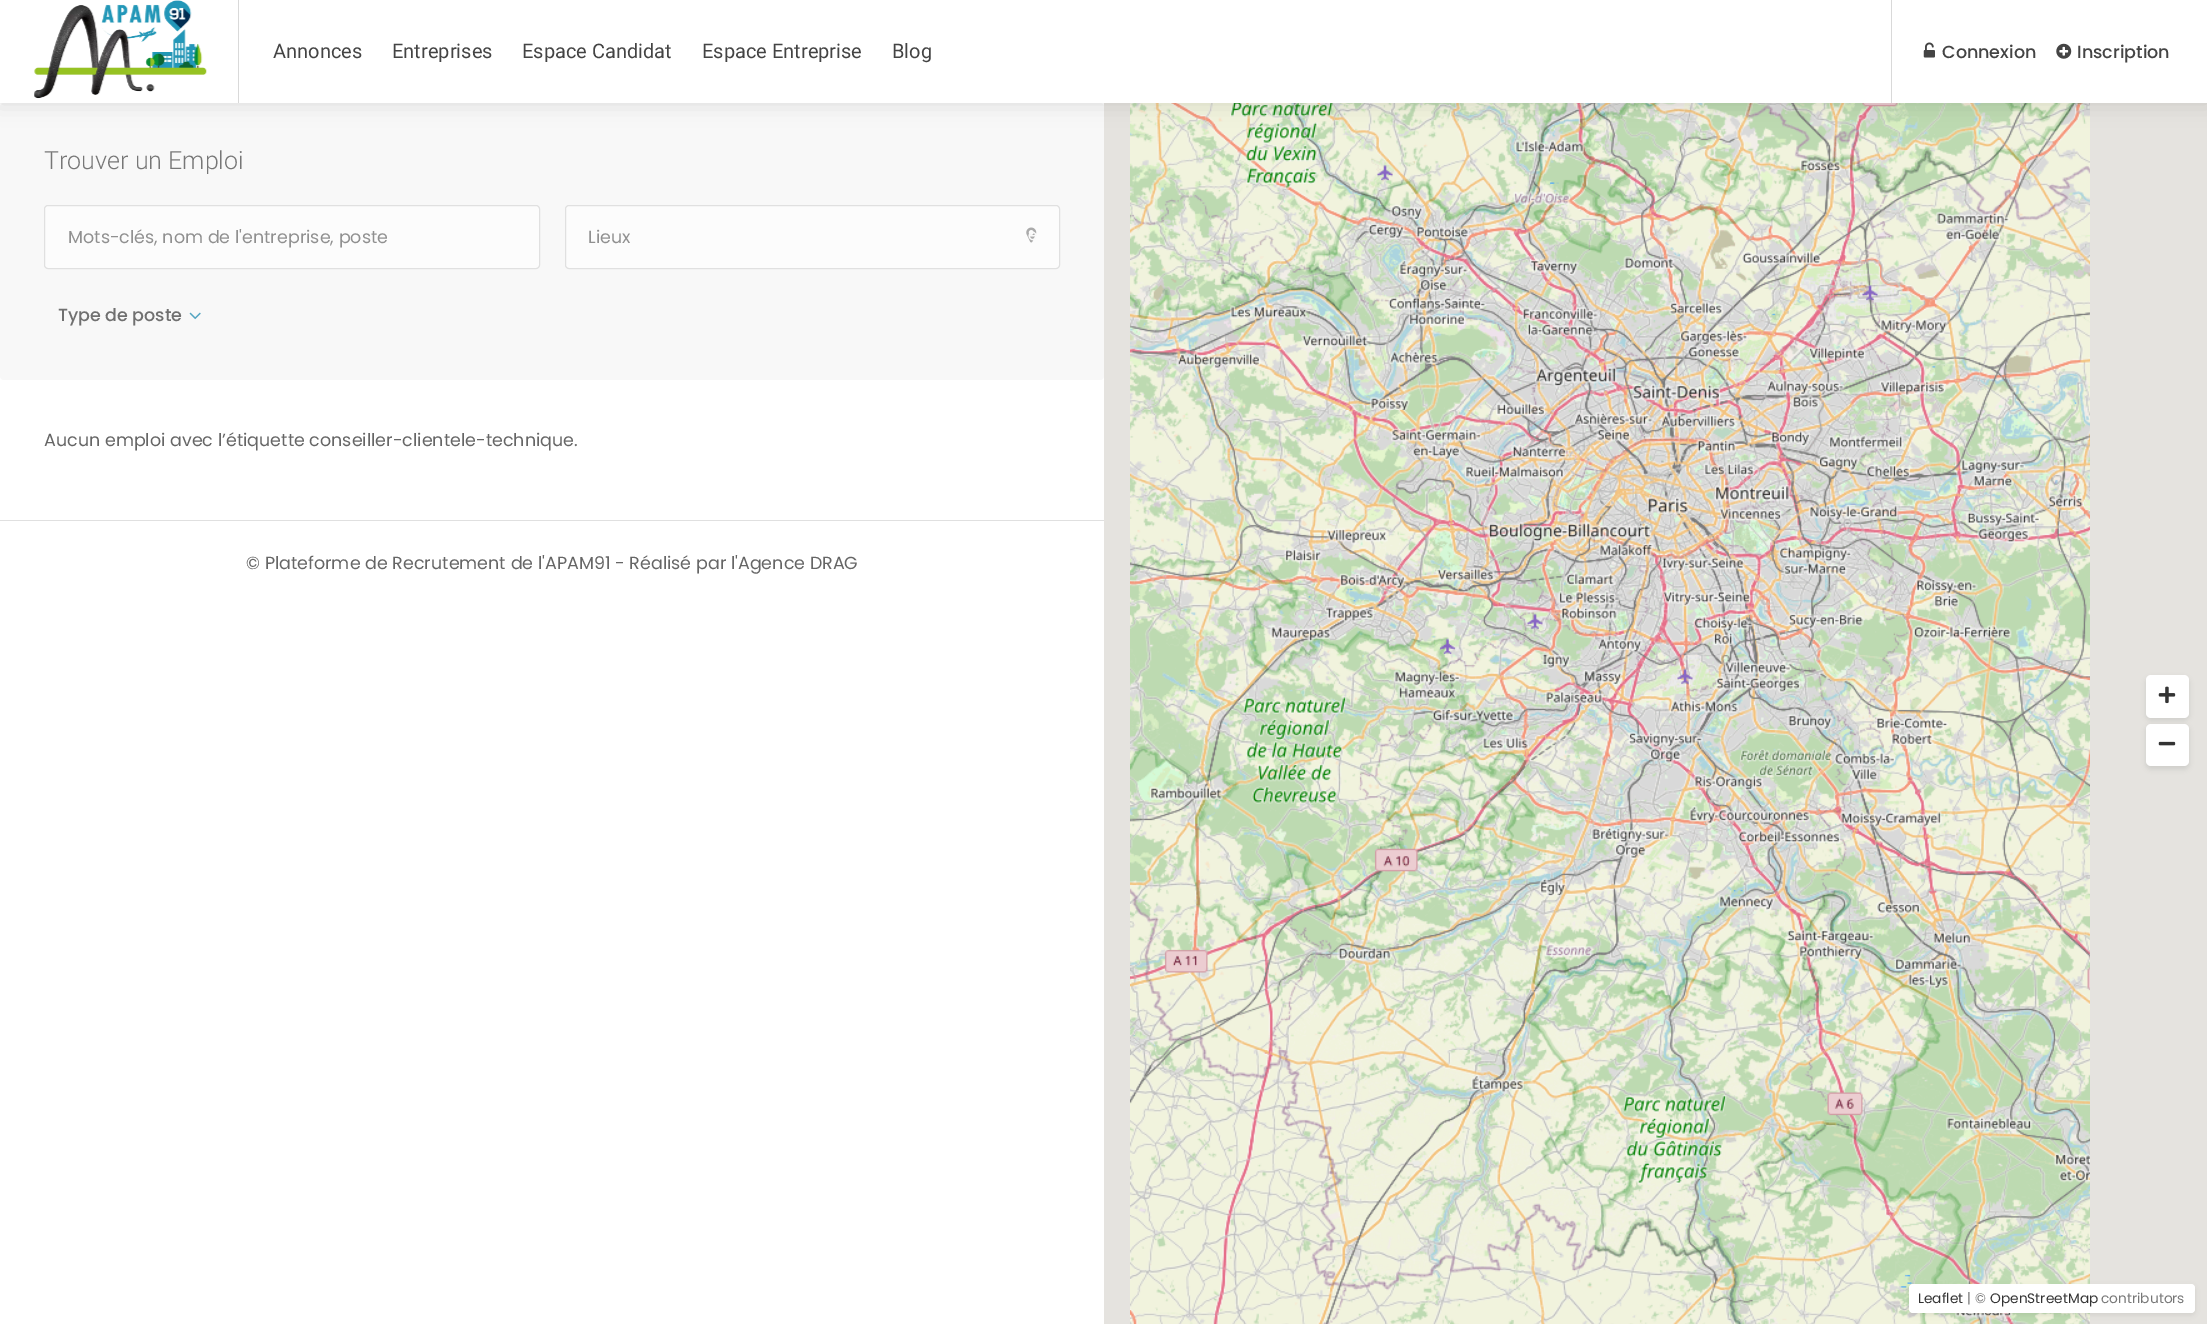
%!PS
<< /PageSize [2207 1324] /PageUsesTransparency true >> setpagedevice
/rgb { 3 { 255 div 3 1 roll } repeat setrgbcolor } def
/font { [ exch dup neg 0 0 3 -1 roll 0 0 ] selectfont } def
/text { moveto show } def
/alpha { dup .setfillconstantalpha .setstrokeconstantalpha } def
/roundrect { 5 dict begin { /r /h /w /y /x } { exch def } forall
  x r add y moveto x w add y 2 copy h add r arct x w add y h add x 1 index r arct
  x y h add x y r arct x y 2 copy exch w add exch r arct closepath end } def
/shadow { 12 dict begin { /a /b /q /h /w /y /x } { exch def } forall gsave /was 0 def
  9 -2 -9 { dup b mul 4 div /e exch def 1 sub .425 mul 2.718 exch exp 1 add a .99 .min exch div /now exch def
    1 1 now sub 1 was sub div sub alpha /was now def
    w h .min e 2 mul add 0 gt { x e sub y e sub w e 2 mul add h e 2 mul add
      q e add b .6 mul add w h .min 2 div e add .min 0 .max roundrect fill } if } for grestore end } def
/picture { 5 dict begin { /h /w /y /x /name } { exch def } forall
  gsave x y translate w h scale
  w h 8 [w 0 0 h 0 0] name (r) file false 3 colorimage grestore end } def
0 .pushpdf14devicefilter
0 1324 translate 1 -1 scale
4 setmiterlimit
255 255 255 rgb
0 0 2207 1324 rectfill
248 248 248 rgb
0 103 1104 277 4 roundrect fill
229 227 223 rgb
1104 103 1103 1221 rectfill
(img_06.rgb) 1130 103 320 307 picture
(img_07.rgb) 1450 103 320 307 picture
(img_08.rgb) 1770 103 320 307 picture
0 0 0 rgb
0 0 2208 103 0 11 0.12 shadow
255 255 255 rgb
0 0 2207 103 rectfill
217 217 217 rgb
238 0 1 103 rectfill
(img_01.rgb) 34 0 173 99 picture
1891 0 1 103 rectfill
(img_02.rgb) 1923 42 12 16 picture
(img_03.rgb) 2056 43 16 16 picture
252 252 252 rgb
44.5 205.5 495 63 3.5 roundrect gsave fill grestore
224 224 224 rgb
stroke
252 252 252 rgb
565.5 205.5 494 63 3.5 roundrect gsave fill grestore
224 224 224 rgb
stroke
(img_04.rgb) 1026 227 11 16 picture
(img_05.rgb) 189 312 12 8 picture
0 520 1104 1 rectfill
(img_09.rgb) 1130 410 320 320 picture
(img_10.rgb) 1450 410 320 320 picture
(img_11.rgb) 1770 410 320 320 picture
(img_12.rgb) 1130 730 320 320 picture
(img_13.rgb) 1450 730 320 320 picture
(img_14.rgb) 1770 730 320 320 picture
(img_15.rgb) 1130 1050 320 274 picture
(img_16.rgb) 1450 1050 320 274 picture
(img_17.rgb) 1770 1050 320 274 picture
0 0 0 rgb
2146 678 43 42 5 2.5 0.1 shadow
255 255 255 rgb
2146 675 43 43 5 roundrect fill
(img_18.rgb) 2158 686 18 18 picture
0 0 0 rgb
2146 726 43 43 5 2.5 0.1 shadow
255 255 255 rgb
2146 724 43 42 5 roundrect fill
(img_19.rgb) 2158 741 18 5 picture
0 0 0 rgb
1909 1286 286 29 4 2.5 0.07 shadow
255 255 255 rgb
1909 1284 286 29 4 roundrect fill
/Roboto-Regular 20 font
68 68 68 rgb
(Annonces) 273 58 text
(Entreprises) 392 58 text
(Espace Candidat) 522 58 text
(Espace Entreprise) 702 58 text
(Blog) 892 58 text
/Poppins-Medium 17.5 font
(Connexion) 1942 58 text
(Inscription) 2077 58 text
/Roboto-Light 25 font
119 119 119 rgb
(Trouver un Emploi) 44 169 text
/Poppins-Regular 17.5 font
144 144 144 rgb
(Mots-clés, nom de l'entreprise, poste) 68 243 text
(Lieux) 588 243 text
/Poppins-Medium 15 font
249 249 249 rgb
(e) 1028 240 text
/Poppins-Medium 17.5 font
112 112 112 rgb
(Type de poste) 58 321 text
/Poppins-Regular 17.5 font
102 102 102 rgb
(Aucun emploi avec l’étiquette conseiller-clientele-technique.) 44 446 text
(© Plateforme de Recrutement de l'APAM91 - Réalisé par l'Agence DRAG) 246 569 text
/Poppins-Regular 13.75 font
51 51 51 rgb
(Leaflet) 1918 1303 text
119 119 119 rgb
(| ©) 1967 1303 text
51 51 51 rgb
(OpenStreetMap) 1990 1303 text
119 119 119 rgb
(contributors) 2101 1303 text
.poppdf14devicefilter showpage
